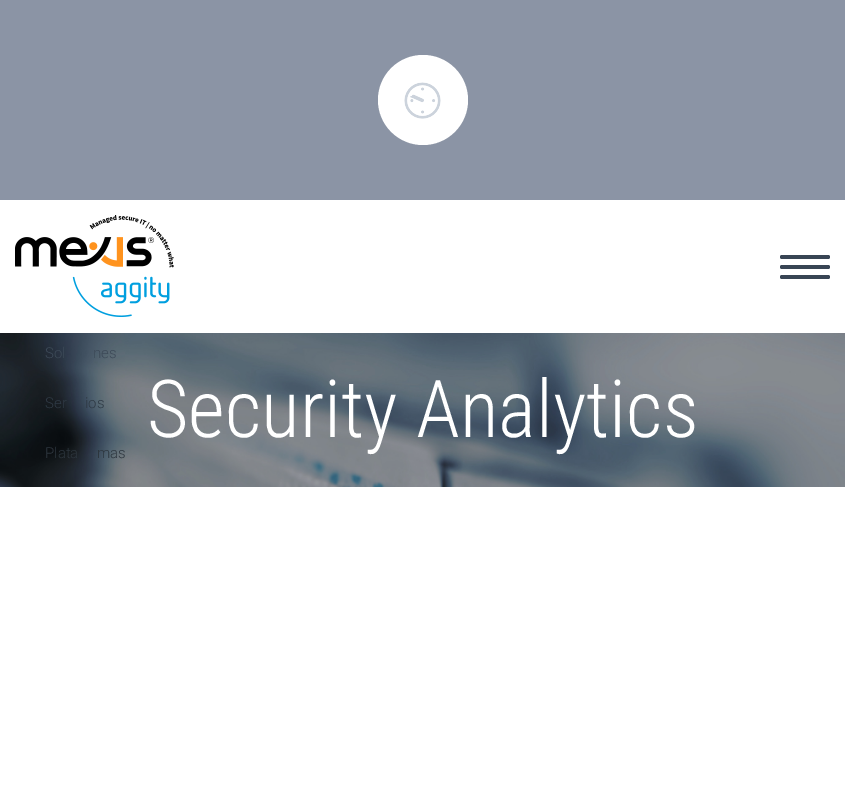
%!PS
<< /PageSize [845 811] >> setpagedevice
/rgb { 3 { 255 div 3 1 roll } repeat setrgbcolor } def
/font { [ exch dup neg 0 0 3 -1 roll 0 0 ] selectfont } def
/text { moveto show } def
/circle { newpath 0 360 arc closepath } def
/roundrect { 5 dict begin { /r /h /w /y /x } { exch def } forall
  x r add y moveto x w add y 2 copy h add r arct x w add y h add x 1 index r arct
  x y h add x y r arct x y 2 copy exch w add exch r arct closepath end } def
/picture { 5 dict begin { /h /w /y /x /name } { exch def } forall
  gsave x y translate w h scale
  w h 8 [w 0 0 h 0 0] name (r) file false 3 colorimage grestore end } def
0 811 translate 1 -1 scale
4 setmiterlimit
139 148 165 rgb
0 0 845 811 rectfill
255 255 255 rgb
423 100 45 circle fill
(img_01.rgb) 404 82 37 37 picture
0 200 845 133 rectfill
(img_02.rgb) 15 215 159 102 picture
56 69 84 rgb
780 275 50 4 2 roundrect fill
780 265 50 4 2 roundrect fill
780 255 50 4 2 roundrect fill
(img_03.rgb) 0 333 845 154 picture
255 255 255 rgb
0 487 845 324 rectfill
/Roboto-Light 15 font
61 74 88 rgb
(Sol) 45 358 text
(nes) 93 358 text
47 58 69 rgb
(Ser) 45 408 text
(ios) 85 408 text
45 54 62 rgb
(Plata) 45 458 text
(mas) 97 458 text
/RobotoCondensed-Light 80 font
255 255 255 rgb
(Security Analytics) 147 437 text
showpage
